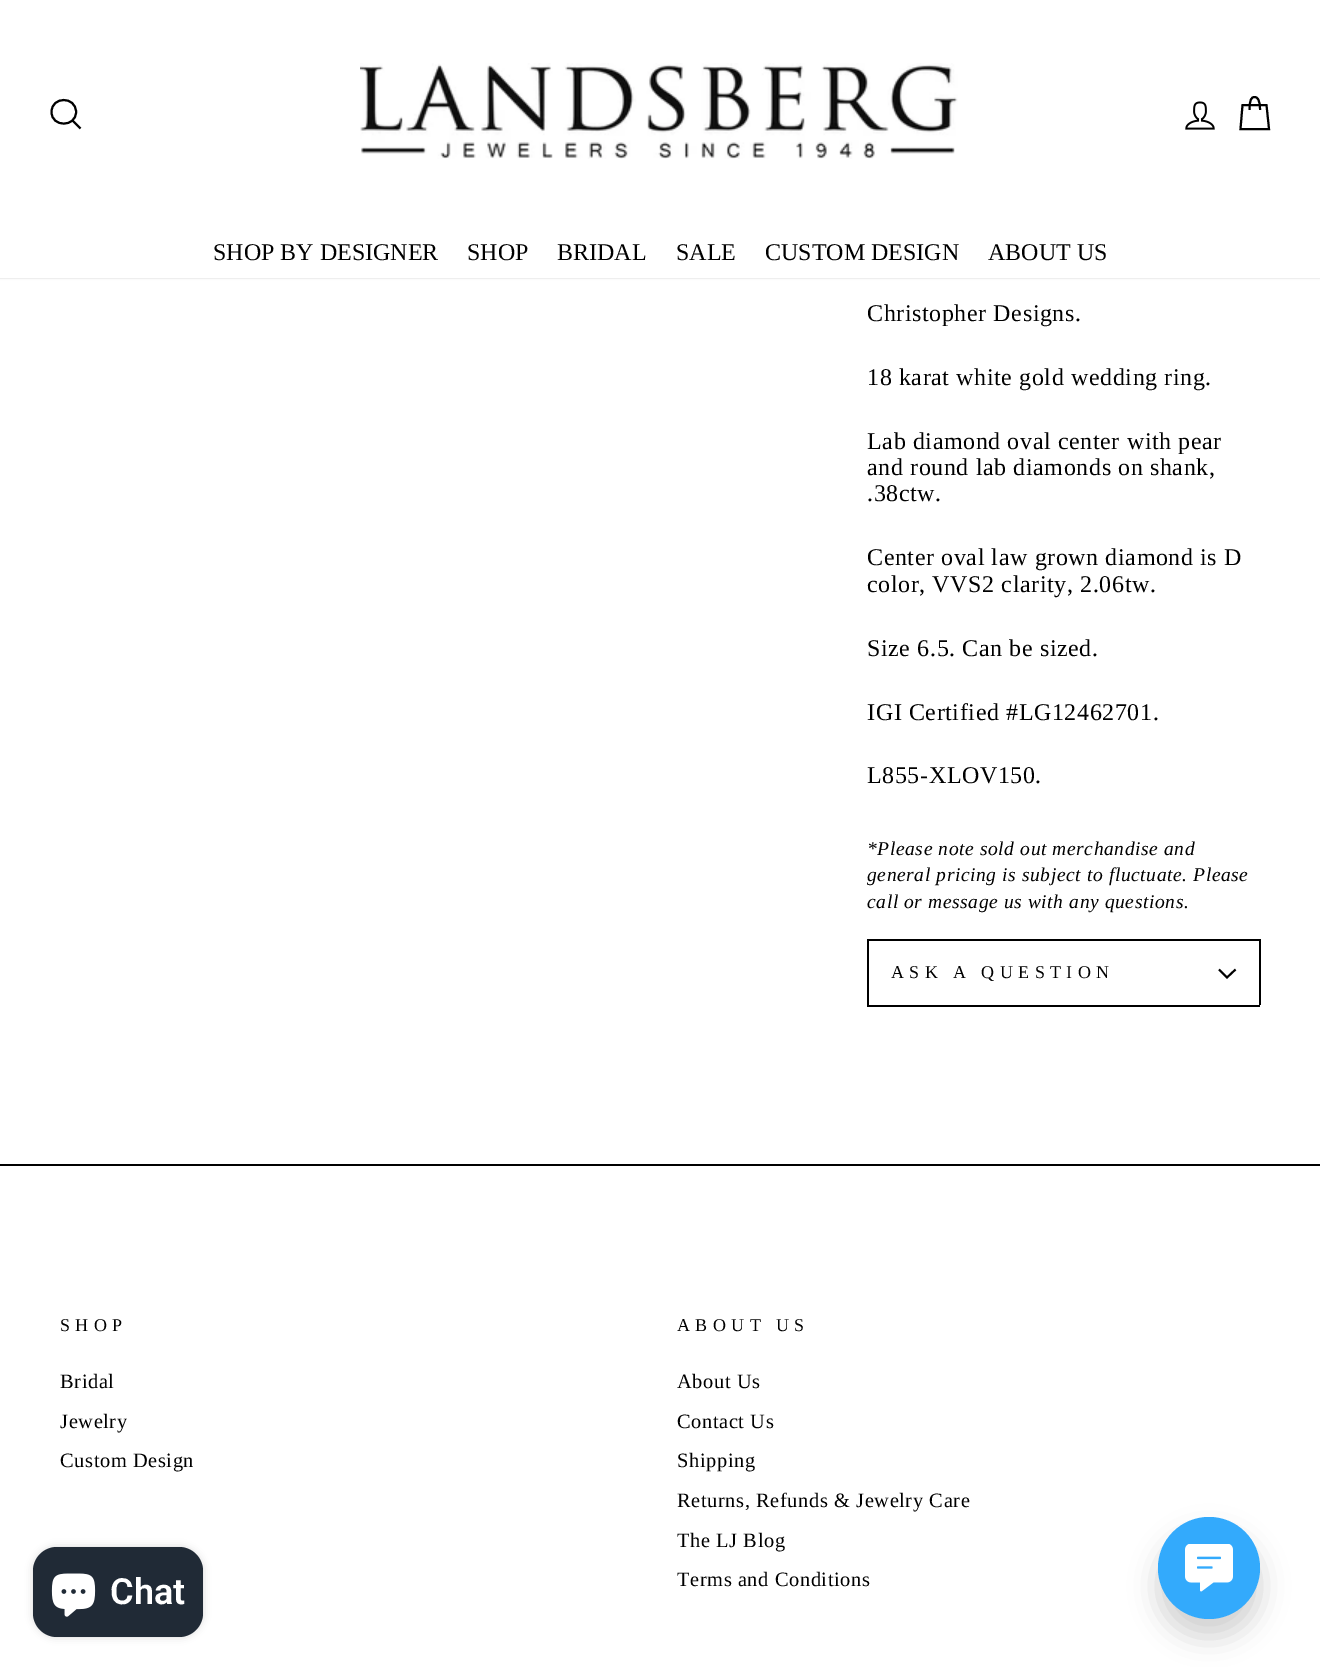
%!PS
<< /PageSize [1320 1667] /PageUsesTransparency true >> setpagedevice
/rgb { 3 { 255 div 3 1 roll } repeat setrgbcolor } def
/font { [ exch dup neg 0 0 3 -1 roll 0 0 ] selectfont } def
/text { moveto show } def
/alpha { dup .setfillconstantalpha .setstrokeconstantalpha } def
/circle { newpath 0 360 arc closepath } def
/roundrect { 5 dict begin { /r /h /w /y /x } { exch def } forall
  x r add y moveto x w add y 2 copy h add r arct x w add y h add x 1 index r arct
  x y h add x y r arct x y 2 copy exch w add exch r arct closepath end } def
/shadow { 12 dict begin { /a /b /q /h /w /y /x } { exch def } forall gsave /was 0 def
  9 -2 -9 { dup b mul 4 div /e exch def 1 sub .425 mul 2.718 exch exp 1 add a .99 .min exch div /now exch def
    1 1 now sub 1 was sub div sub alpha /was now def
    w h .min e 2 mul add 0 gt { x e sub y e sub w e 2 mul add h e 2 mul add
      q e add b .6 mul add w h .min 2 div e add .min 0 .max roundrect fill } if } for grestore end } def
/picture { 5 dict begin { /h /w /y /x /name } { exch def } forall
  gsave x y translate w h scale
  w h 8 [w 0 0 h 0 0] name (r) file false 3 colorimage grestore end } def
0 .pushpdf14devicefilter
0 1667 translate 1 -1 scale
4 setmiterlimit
255 255 255 rgb
0 0 1320 1667 rectfill
0 0 0 rgb
0 0 1320 278 0 1 0.2 shadow
255 255 255 rgb
0 0 1320 278 rectfill
0 0 0 rgb
2 setlinewidth
76 112 moveto 0 15.5 -24.5 15.5 -24.5 0 rcurveto 0 -16 24.5 -16 24.5 0 rcurveto closepath 80.5 128.5 moveto -8 -8 rlineto stroke
(img_01.rgb) 360 63 598 96 picture
(img_02.rgb) 1185 101 30 29 picture
1249.5 110 moveto 0 -10.5 2 -13 5 -13 rcurveto 3 0 5.5 2.5 5.5 13 rcurveto 1242.5 105 moveto 24 0 rlineto 2.5 24 rlineto -28.5 0 rlineto closepath stroke
867 1005 393 2 rectfill
867 939 393 2 rectfill
1259 939 2 66 rectfill
867 939 2 66 rectfill
1.9 setlinewidth
1219 969.5 moveto 8 8 rlineto 8.5 -8 rlineto stroke
0 1164 1320 2 rectfill
33 1547 170 90 24 4 0.15 shadow
32 42 54 rgb
33 1547 170 90 24 roundrect fill
(img_03.rgb) 51 1573 45 44 picture
0 0 0 rgb
1158 1535 102 102 51 14 0.18 shadow
51 170 252 rgb
1209 1568 51 circle fill
(img_04.rgb) 1185 1544 48 48 picture
/LiberationSerif-Regular 24 font
0 0 0 rgb
(SHOP BY DESIGNER) 213 260 text
(SHOP) 467 260 text
(BRIDAL) 557 260 text
(SALE) 676 260 text
(CUSTOM DESIGN) 765 260 text
(ABOUT US) 988 260 text
867 321 moveto 0.6 0 (Christopher Designs.) ashow
867 385 moveto 0.6 0 (18 karat white gold wedding ring.) ashow
867 449 moveto 0.6 0 (Lab diamond oval center with pear) ashow
867 475 moveto 0.6 0 (and round lab diamonds on shank,) ashow
867 501 moveto 0.6 0 (.38ctw.) ashow
867 565 moveto 0.6 0 (Center oval law grown diamond is D) ashow
867 592 moveto 0.6 0 (color, VVS2 clarity, 2.06tw.) ashow
867 656 moveto 0.6 0 (Size 6.5. Can be sized.) ashow
867 720 moveto 0.6 0 (IGI Certified #LG12462701.) ashow
867 783 moveto 0.6 0 (L855-XLOV150.) ashow
/LiberationSerif-Italic 19.5 font
867 855 moveto 0.6 0 (*Please note sold out merchandise and) ashow
867 881 moveto 0.6 0 (general pricing is subject to fluctuate. Please) ashow
867 908 moveto 0.6 0 (call or message us with any questions.) ashow
/LiberationSerif-Regular 18 font
891 978 moveto 5.4 0 (ASK A QUESTION) ashow
60 1331 moveto 5.4 0 (SHOP) ashow
/LiberationSerif-Regular 20.4 font
60 1388 moveto 0.6 0 (Bridal) ashow
60 1428 moveto 0.6 0 (Jewelry) ashow
60 1467 moveto 0.6 0 (Custom Design) ashow
/LiberationSerif-Regular 18 font
677 1331 moveto 5.4 0 (ABOUT US) ashow
/LiberationSerif-Regular 20.4 font
677 1388 moveto 0.6 0 (About Us) ashow
677 1428 moveto 0.6 0 (Contact Us) ashow
677 1467 moveto 0.6 0 (Shipping) ashow
677 1507 moveto 0.6 0 (Returns, Refunds & Jewelry Care) ashow
677 1547 moveto 0.6 0 (The LJ Blog) ashow
677 1586 moveto 0.6 0 (Terms and Conditions) ashow
/Roboto-SemiBold 36 font
255 255 255 rgb
(Chat) 110 1604 text
.poppdf14devicefilter showpage
